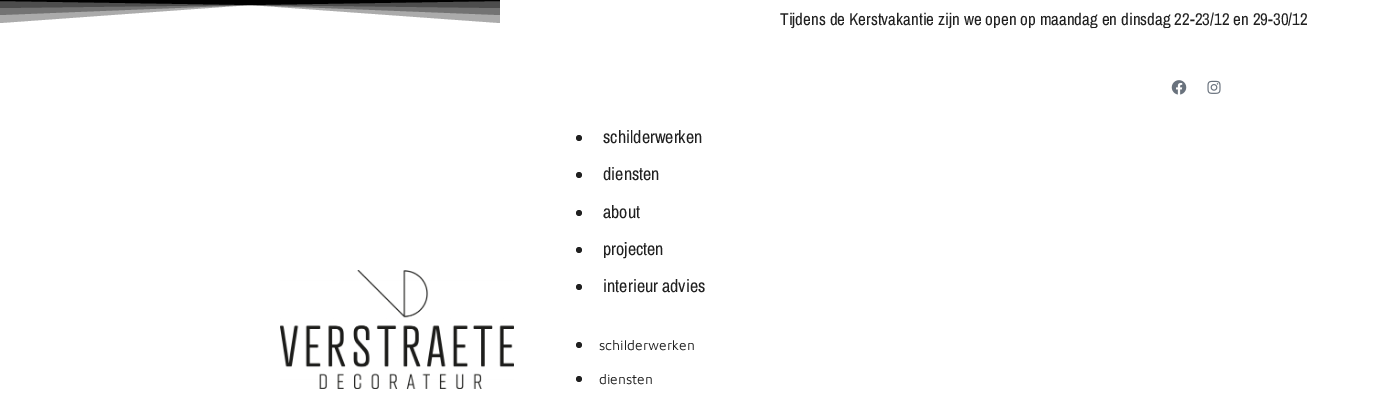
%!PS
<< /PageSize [1379 398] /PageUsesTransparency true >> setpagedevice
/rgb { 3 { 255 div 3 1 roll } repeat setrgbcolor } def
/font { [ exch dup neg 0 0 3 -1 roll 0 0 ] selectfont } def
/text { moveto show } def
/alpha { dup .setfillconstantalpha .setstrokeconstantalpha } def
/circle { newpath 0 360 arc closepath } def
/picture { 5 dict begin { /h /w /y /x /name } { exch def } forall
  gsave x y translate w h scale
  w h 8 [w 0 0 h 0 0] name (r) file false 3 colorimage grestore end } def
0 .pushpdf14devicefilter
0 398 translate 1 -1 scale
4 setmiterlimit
255 255 255 rgb
0 0 1379 398 rectfill
171 171 171 rgb
0 0 moveto 0 23 rlineto 250 -18 rlineto 250 18 rlineto 0 -23 rlineto closepath fill
0.33 alpha
0 0 0 rgb
0 0 moveto 0 15 rlineto 250 -10 rlineto 250 10 rlineto 0 -15 rlineto closepath fill
1 alpha
77 77 77 rgb
0 0 moveto 0 8 rlineto 250 -3 rlineto 250 3 rlineto 0 -8 rlineto closepath fill
0 0 0 rgb
0 0 moveto 0 1 rlineto 250 4 rlineto 250 -4 rlineto 0 -1 rlineto closepath fill
(img_01.rgb) 280 270 234 119 picture
(img_02.rgb) 1171 80 16 15 picture
(img_03.rgb) 1207 80 14 14 picture
32 32 32 rgb
579 138 3 circle fill
579 175 3 circle fill
579 213 3 circle fill
579 250 3 circle fill
579 287 3 circle fill
579 345 3 circle fill
579 379 3 circle fill
/ArchivoNarrow-Regular 17 font
(Tijdens de Kerstvakantie zijn we open op maandag en dinsdag 22-23/12 en 29-30/12) 780 25 text
/ArchivoNarrow-Regular 18 font
(schilderwerken) 603 143 text
(diensten) 603 180 text
(about) 603 218 text
(projecten) 603 255 text
(interieur advies) 603 292 text
/MavenPro-Regular 14 font
(schilderwerken) 599 350 text
(diensten) 599 384 text
.poppdf14devicefilter showpage
